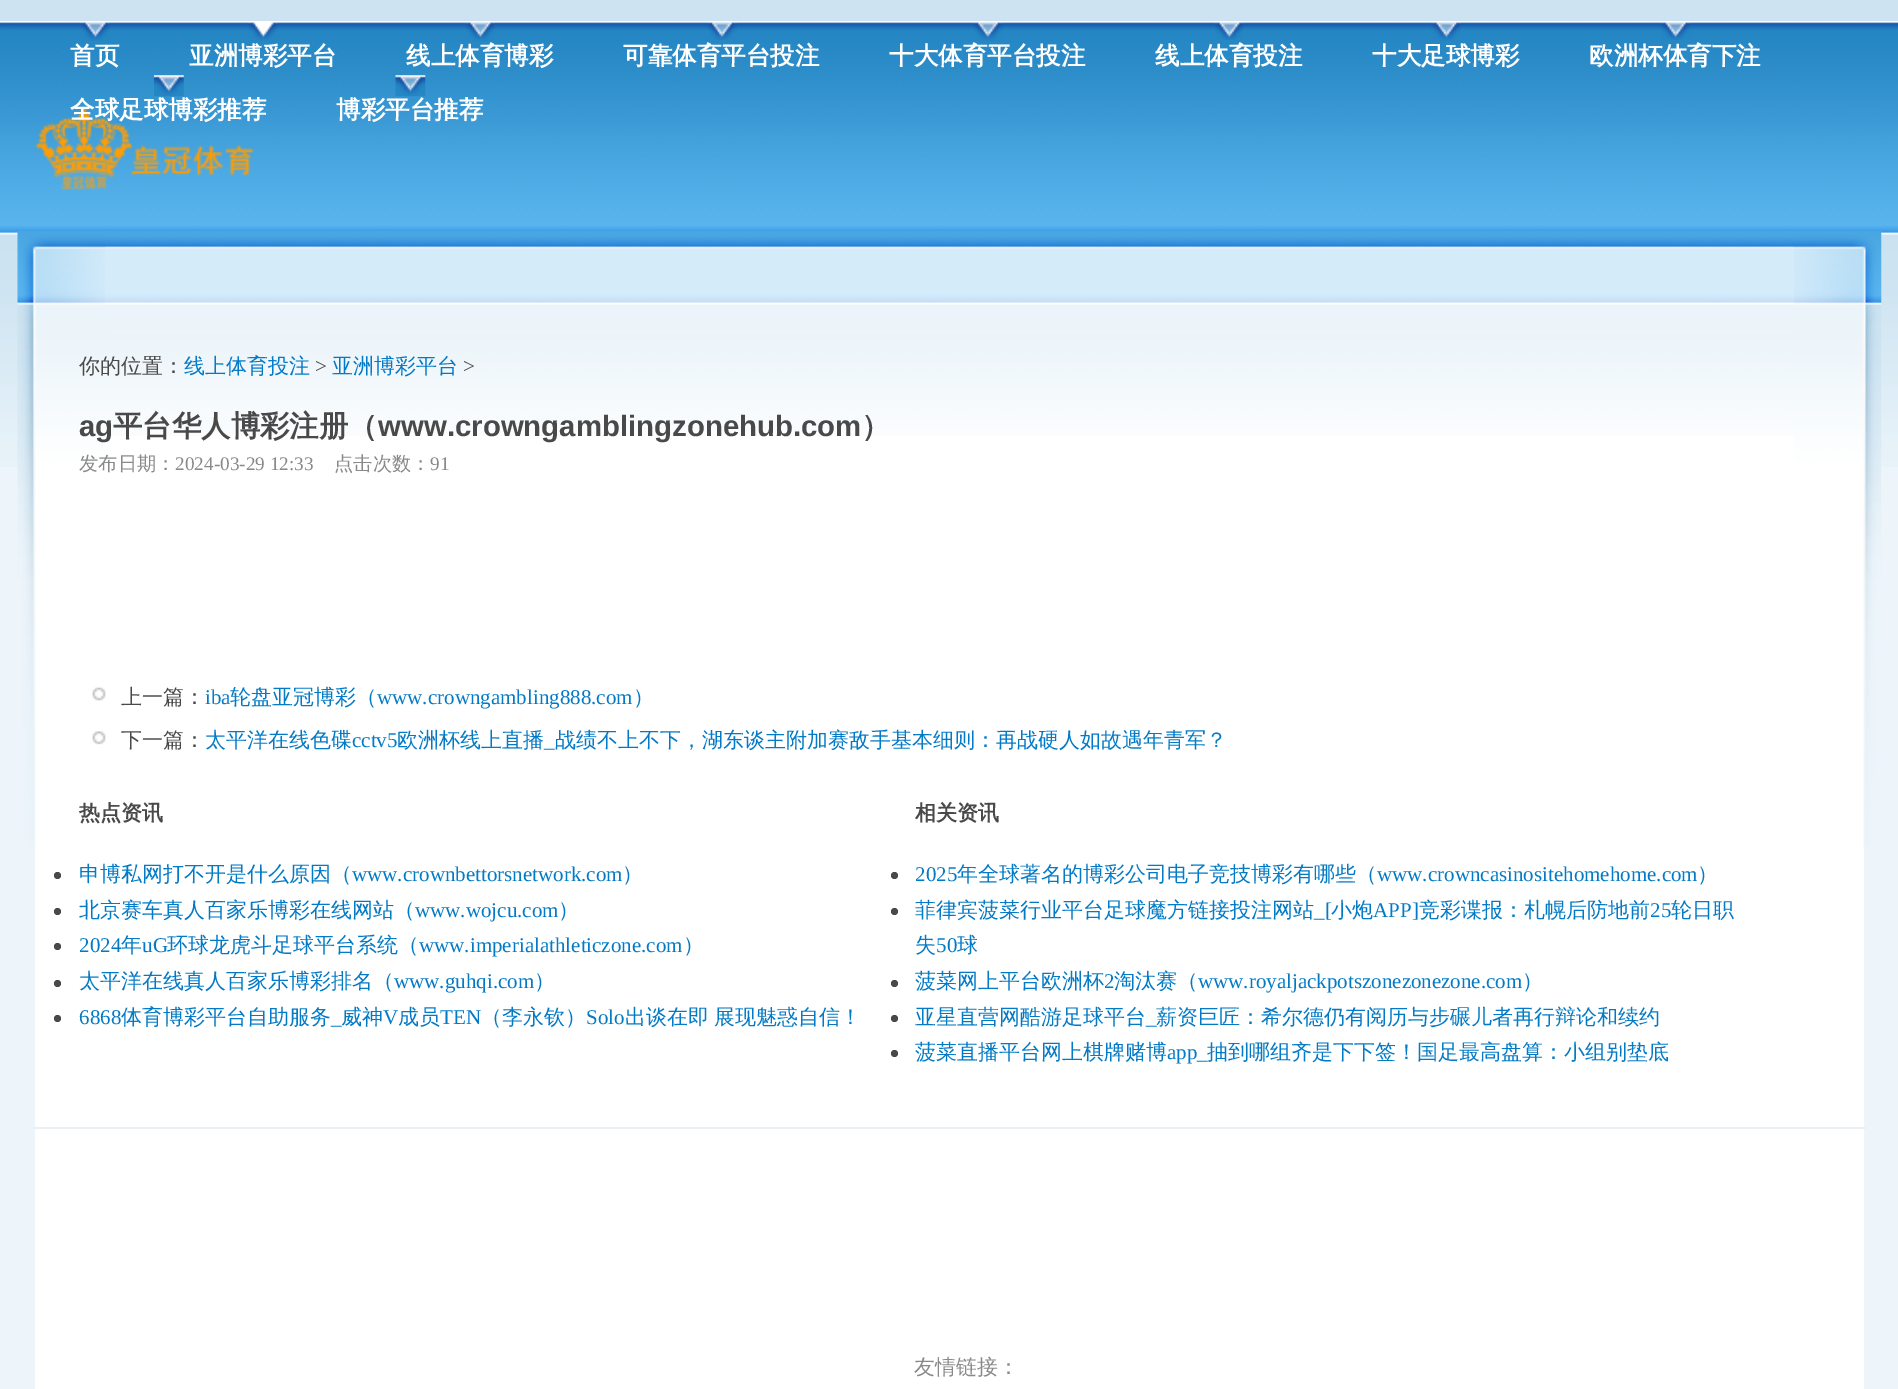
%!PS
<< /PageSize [1898 1389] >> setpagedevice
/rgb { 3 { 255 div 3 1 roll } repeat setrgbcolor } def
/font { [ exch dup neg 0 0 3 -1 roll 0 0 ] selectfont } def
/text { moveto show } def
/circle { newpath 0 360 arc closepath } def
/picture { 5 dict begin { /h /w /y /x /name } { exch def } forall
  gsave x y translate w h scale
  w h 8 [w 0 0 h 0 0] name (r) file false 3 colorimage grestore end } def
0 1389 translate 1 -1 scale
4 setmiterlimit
205 227 241 rgb
0 0 1898 1389 rectfill
237 245 250 rgb
0 467 1898 922 rectfill
(img_01.rgb) 0 21 1898 446 picture
(img_02.rgb) 80 22 30 19 picture
(img_03.rgb) 248 22 30 19 picture
(img_02.rgb) 465 22 30 19 picture
(img_04.rgb) 707 22 30 18 picture
(img_05.rgb) 973 22 30 19 picture
(img_06.rgb) 1214 22 30 18 picture
(img_07.rgb) 1431 22 30 19 picture
(img_08.rgb) 1661 22 30 18 picture
(img_09.rgb) 154 75 30 22 picture
(img_10.rgb) 395 75 31 22 picture
(img_11.rgb) 36 108 218 82 picture
255 255 255 rgb
35 436 1829 953 rectfill
(img_12.rgb) 105 231 1689 205 picture
(img_13.rgb) 1794 231 88 616 picture
(img_14.rgb) 17 231 88 616 picture
233 239 243 rgb
33 1127 1833 2 rectfill
(img_15.rgb) 92 687 14 14 picture
(img_16.rgb) 92 731 14 14 picture
73 73 73 rgb
57.5 875.5 3.5 circle fill
57.5 911.5 3.5 circle fill
57.5 946.5 3.5 circle fill
57.5 983.5 3.5 circle fill
57.5 1018.5 3.5 circle fill
894.5 875.5 3.5 circle fill
894.5 911.5 3.5 circle fill
894.5 983.5 3.5 circle fill
894.5 1018.5 3.5 circle fill
894.5 1053.5 3.5 circle fill
/WenQuanYiZenHei-Bold 24.5 font
255 255 255 rgb
(首页) 70 64 text
(亚洲博彩平台) 189 64 text
(线上体育博彩) 406 64 text
(可靠体育平台投注) 623 64 text
(十大体育平台投注) 889 64 text
(线上体育投注) 1155 64 text
(十大足球博彩) 1372 64 text
(欧洲杯体育下注) 1589 64 text
(全球足球博彩推荐) 70 118 text
(博彩平台推荐) 336 118 text
/WenQuanYiZenHei-Medium 21 font
73 73 73 rgb
(你的位置：) 79 373 text
2 122 198 rgb
(线上体育投注) 184 373 text
/LiberationSerif-Regular 21 font
73 73 73 rgb
(>) 315 373 text
/WenQuanYiZenHei-Medium 21 font
2 122 198 rgb
(亚洲博彩平台) 332 373 text
/LiberationSerif-Regular 21 font
73 73 73 rgb
(>) 463 373 text
/LiberationSans-Bold 29.4 font
(ag) 79 436 text
/WenQuanYiZenHei-Bold 29.4 font
(平台华人博彩注册（) 113 436 text
/LiberationSans-Bold 29.4 font
(www.crowngamblingzonehub.com) 378 436 text
/WenQuanYiZenHei-Bold 29.4 font
(）) 861 436 text
/WenQuanYiZenHei-Medium 19.25 font
137 137 137 rgb
(发布日期：) 79 470 text
/LiberationSerif-Regular 19.25 font
(2024-03-29 12:33) 175 470 text
/WenQuanYiZenHei-Medium 19.25 font
(点击次数：) 334 470 text
/LiberationSerif-Regular 19.25 font
(91) 430 470 text
/WenQuanYiZenHei-Medium 21 font
73 73 73 rgb
(上一篇：) 121 704 text
/LiberationSerif-Regular 21 font
2 122 198 rgb
(iba) 205 704 text
/WenQuanYiZenHei-Medium 21 font
(轮盘亚冠博彩（) 230 704 text
/LiberationSerif-Regular 21 font
(www.crowngambling888.com) 377 704 text
/WenQuanYiZenHei-Medium 21 font
(）) 633 704 text
73 73 73 rgb
(下一篇：) 121 747 text
2 122 198 rgb
(太平洋在线色碟) 205 747 text
/LiberationSerif-Regular 21 font
(cctv5) 352 747 text
/WenQuanYiZenHei-Medium 21 font
(欧洲杯线上直播) 397 747 text
(战绩不上不下，湖东谈主附加赛敌手基本细则：再战硬人如故遇年青军？) 555 747 text
/LiberationSerif-Regular 21 font
(_) 544 747 text
/WenQuanYiZenHei-Bold 21 font
73 73 73 rgb
(热点资讯) 79 820 text
/WenQuanYiZenHei-Medium 21 font
2 122 198 rgb
(申博私网打不开是什么原因（) 79 881 text
/LiberationSerif-Regular 21 font
(www.crownbettorsnetwork.com) 352 881 text
/WenQuanYiZenHei-Medium 21 font
(）) 622 881 text
(北京赛车真人百家乐博彩在线网站（) 79 917 text
/LiberationSerif-Regular 21 font
(www.wojcu.com) 415 917 text
/WenQuanYiZenHei-Medium 21 font
(）) 558 917 text
/LiberationSerif-Regular 21 font
(2024) 79 952 text
/WenQuanYiZenHei-Medium 21 font
(年) 121 952 text
/LiberationSerif-Regular 21 font
(uG) 142 952 text
/WenQuanYiZenHei-Medium 21 font
(环球龙虎斗足球平台系统（) 167 952 text
/LiberationSerif-Regular 21 font
(www.imperialathleticzone.com) 419 952 text
/WenQuanYiZenHei-Medium 21 font
(）) 683 952 text
(太平洋在线真人百家乐博彩排名（) 79 988 text
/LiberationSerif-Regular 21 font
(www.guhqi.com) 394 988 text
/WenQuanYiZenHei-Medium 21 font
(）) 534 988 text
/LiberationSerif-Regular 21 font
(6868) 79 1024 text
/WenQuanYiZenHei-Medium 21 font
(体育博彩平台自助服务) 121 1024 text
/LiberationSerif-Regular 21 font
(V) 383 1024 text
/WenQuanYiZenHei-Medium 21 font
(成员) 398 1024 text
/LiberationSerif-Regular 21 font
(TEN) 440 1024 text
/WenQuanYiZenHei-Medium 21 font
(（李永钦）) 481 1024 text
/LiberationSerif-Regular 21 font
(Solo) 586 1024 text
/WenQuanYiZenHei-Medium 21 font
625 1024 moveto -1 0 32 (出谈在即 展现魅惑自信！) widthshow
/LiberationSerif-Regular 21 font
(_) 331 1024 text
/WenQuanYiZenHei-Medium 21 font
(威神) 341 1024 text
/WenQuanYiZenHei-Bold 21 font
73 73 73 rgb
(相关资讯) 915 820 text
/LiberationSerif-Regular 21 font
2 122 198 rgb
(2025) 915 881 text
/WenQuanYiZenHei-Medium 21 font
(年全球著名的博彩公司电子竞技博彩有哪些（) 957 881 text
/LiberationSerif-Regular 21 font
(www.crowncasinositehomehome.com) 1377 881 text
/WenQuanYiZenHei-Medium 21 font
(）) 1697 881 text
(菲律宾菠菜行业平台足球魔方链接投注网站) 915 917 text
/LiberationSerif-Regular 21 font
(_[) 1314 917 text
/WenQuanYiZenHei-Medium 21 font
(小炮) 1331 917 text
/LiberationSerif-Regular 21 font
(APP]) 1373 917 text
/WenQuanYiZenHei-Medium 21 font
(竞彩谍报：札幌后防地前) 1419 917 text
/LiberationSerif-Regular 21 font
(25) 1650 917 text
/WenQuanYiZenHei-Medium 21 font
(轮日职) 1671 917 text
(失) 915 952 text
/LiberationSerif-Regular 21 font
(50) 936 952 text
/WenQuanYiZenHei-Medium 21 font
(球) 957 952 text
(菠菜网上平台欧洲杯) 915 988 text
/LiberationSerif-Regular 21 font
(2) 1104 988 text
/WenQuanYiZenHei-Medium 21 font
(淘汰赛（) 1114 988 text
/LiberationSerif-Regular 21 font
(www.royaljackpotszonezonezone.com) 1198 988 text
/WenQuanYiZenHei-Medium 21 font
(）) 1522 988 text
(亚星直营网酷游足球平台) 915 1024 text
/LiberationSerif-Regular 21 font
(_) 1146 1024 text
/WenQuanYiZenHei-Medium 21 font
(薪资巨匠：希尔德仍有阅历与步碾儿者再行辩论和续约) 1156 1024 text
(菠菜直播平台网上棋牌赌博) 915 1059 text
/LiberationSerif-Regular 21 font
(app_) 1167 1059 text
/WenQuanYiZenHei-Medium 21 font
(抽到哪组齐是下下签！国足最高盘算：小组别垫底) 1207 1059 text
137 137 137 rgb
(友情链接：) 914 1374 text
showpage
